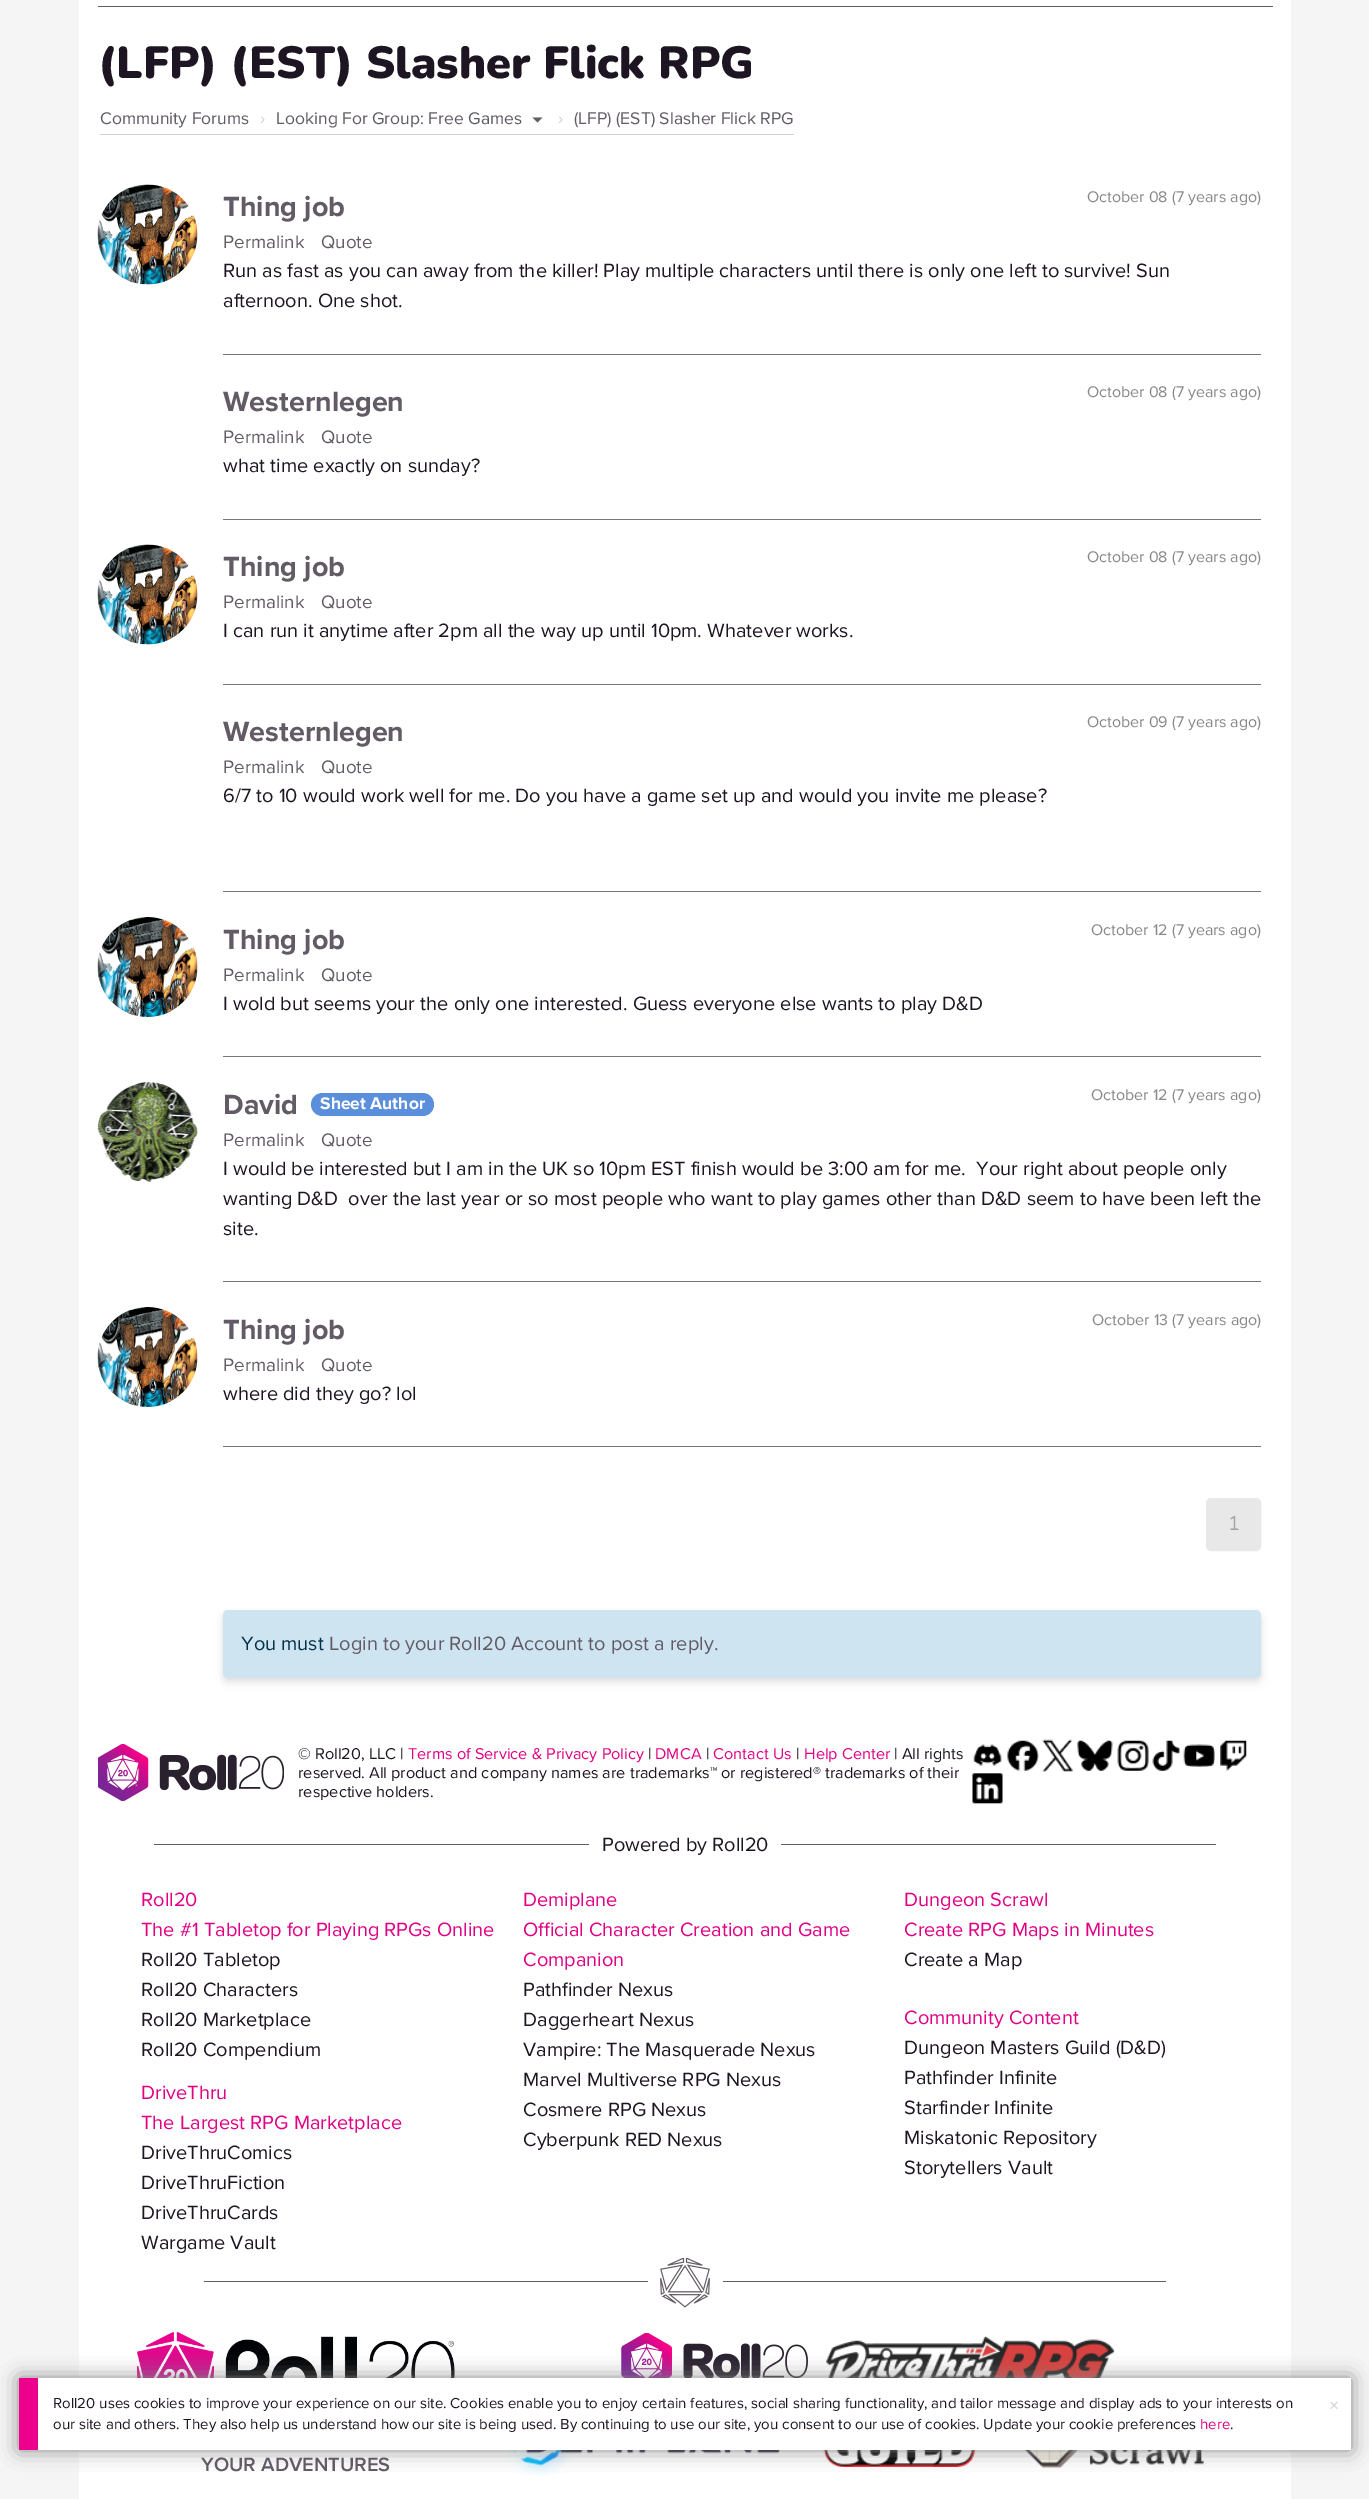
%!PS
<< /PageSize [1369 2499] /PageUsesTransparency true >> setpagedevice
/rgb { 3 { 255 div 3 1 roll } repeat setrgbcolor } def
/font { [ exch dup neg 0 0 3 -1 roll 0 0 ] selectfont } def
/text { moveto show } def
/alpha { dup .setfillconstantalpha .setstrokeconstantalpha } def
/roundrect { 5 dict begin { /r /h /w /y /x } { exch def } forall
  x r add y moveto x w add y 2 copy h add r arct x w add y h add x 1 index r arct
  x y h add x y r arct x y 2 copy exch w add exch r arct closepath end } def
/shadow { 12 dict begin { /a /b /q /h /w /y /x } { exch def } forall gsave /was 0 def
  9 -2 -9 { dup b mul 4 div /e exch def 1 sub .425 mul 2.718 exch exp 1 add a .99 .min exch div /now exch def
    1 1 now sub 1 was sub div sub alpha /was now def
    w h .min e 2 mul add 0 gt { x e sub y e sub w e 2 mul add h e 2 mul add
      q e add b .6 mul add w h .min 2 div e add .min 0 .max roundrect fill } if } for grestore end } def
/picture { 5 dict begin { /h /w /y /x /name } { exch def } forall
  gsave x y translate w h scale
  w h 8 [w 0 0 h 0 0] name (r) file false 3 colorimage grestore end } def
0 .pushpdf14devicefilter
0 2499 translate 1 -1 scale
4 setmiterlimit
245 245 245 rgb
0 0 1369 2499 rectfill
255 255 255 rgb
79 0 1212 2499 rectfill
98 91 101 rgb
98 6 1175 1 rectfill
209 209 209 rgb
100 134 694 1 rectfill
98 91 101 rgb
532.5 117.5 moveto 10 0 rlineto -5 5 rlineto closepath fill
(img_01.rgb) 97 184 101 101 picture
119 119 119 rgb
223 354 1038 1 rectfill
223 519 1038 1 rectfill
(img_02.rgb) 97 544 101 101 picture
223 684 1038 1 rectfill
223 891 1038 1 rectfill
(img_03.rgb) 97 917 101 100 picture
223 1056 1038 1 rectfill
(img_04.rgb) 97 1082 101 100 picture
91 142 219 rgb
311 1093 123 23 11.5 roundrect fill
119 119 119 rgb
223 1281 1038 1 rectfill
(img_05.rgb) 97 1307 101 100 picture
223 1446 1038 1 rectfill
233 232 233 rgb
1207.5 1499.5 52 50 3.5 roundrect gsave fill grestore
3 setlinewidth
stroke
31 41 55 rgb
223 1613 1038 67 5 2.5 0.06 shadow
223 1615 1038 68 5 4 0.1 shadow
206 229 241 rgb
223 1610 1038 68 5 roundrect fill
(img_06.rgb) 98 1744 186 57 picture
(img_07.rgb) 973 1744 29 22 picture
(img_08.rgb) 1007 1740 32 31 picture
(img_09.rgb) 1042 1739 31 33 picture
(img_10.rgb) 1077 1740 36 31 picture
(img_11.rgb) 1117 1740 32 31 picture
(img_12.rgb) 1152 1740 28 31 picture
(img_13.rgb) 1183 1744 32 23 picture
(img_14.rgb) 1220 1740 27 31 picture
(img_15.rgb) 972 1773 31 31 picture
98 91 101 rgb
154 1844 435 1 rectfill
781 1844 435 1 rectfill
204 2281 444 1 rectfill
(img_16.rgb) 660 2258 50 50 picture
723 2281 443 1 rectfill
(img_17.rgb) 136 2332 319 46 picture
(img_18.rgb) 621 2333 187 45 picture
(img_19.rgb) 826 2335 289 43 picture
(img_20.rgb) 508 2450 273 26 picture
(img_21.rgb) 823 2450 153 17 picture
(img_22.rgb) 1024 2450 180 19 picture
136 136 136 rgb
19 2378 1332 72 0 10 1 shadow
255 255 255 rgb
38 2378 1313 72 rectfill
236 0 140 rgb
19 2378 19 72 rectfill
/Nunito-Black 45 font
30 21 35 rgb
(\(LFP\) \(EST\) Slasher Flick RPG) 98 78 text
/ProximaNova-Regular 17.5 font
98 91 101 rgb
(Community Forums) 100 124 text
204 204 204 rgb
(›) 260 124 text
98 91 101 rgb
(Looking For Group: Free Games) 276 124 text
204 204 204 rgb
(›) 558 124 text
98 91 101 rgb
(\(LFP\) \(EST\) Slasher Flick RPG) 574 124 text
/ProximaNova-Bold 28.75 font
(Thing job) 223 216 text
/ProximaNova-Regular 16 font
136 136 136 rgb
(October 08 \(7 years ago\)) 1087 202 text
/ProximaNova-Regular 18.75 font
98 91 101 rgb
(Permalink) 223 248 text
(Quote) 321 248 text
/ProximaNova-Regular 20 font
30 21 35 rgb
(Run as fast as you can away from the killer! Play multiple characters until there is only one left to survive! Sun) 223 277 text
(afternoon. One shot.) 223 307 text
/ProximaNova-Bold 28.75 font
98 91 101 rgb
(Westernlegen) 223 411 text
/ProximaNova-Regular 16 font
136 136 136 rgb
(October 08 \(7 years ago\)) 1087 397 text
/ProximaNova-Regular 18.75 font
98 91 101 rgb
(Permalink) 223 443 text
(Quote) 321 443 text
/ProximaNova-Regular 20 font
30 21 35 rgb
(what time exactly on sunday?) 223 472 text
/ProximaNova-Bold 28.75 font
98 91 101 rgb
(Thing job) 223 576 text
/ProximaNova-Regular 16 font
136 136 136 rgb
(October 08 \(7 years ago\)) 1087 562 text
/ProximaNova-Regular 18.75 font
98 91 101 rgb
(Permalink) 223 608 text
(Quote) 321 608 text
/ProximaNova-Regular 20 font
30 21 35 rgb
(I can run it anytime after 2pm all the way up until 10pm. Whatever works.) 223 637 text
/ProximaNova-Bold 28.75 font
98 91 101 rgb
(Westernlegen) 223 741 text
/ProximaNova-Regular 16 font
136 136 136 rgb
(October 09 \(7 years ago\)) 1087 727 text
/ProximaNova-Regular 18.75 font
98 91 101 rgb
(Permalink) 223 773 text
(Quote) 321 773 text
/ProximaNova-Regular 20 font
30 21 35 rgb
(6/7 to 10 would work well for me. Do you have a game set up and would you invite me please?) 223 802 text
/ProximaNova-Bold 28.75 font
98 91 101 rgb
(Thing job) 223 949 text
/ProximaNova-Regular 16 font
136 136 136 rgb
(October 12 \(7 years ago\)) 1091 935 text
/ProximaNova-Regular 18.75 font
98 91 101 rgb
(Permalink) 223 981 text
(Quote) 321 981 text
/ProximaNova-Regular 20 font
30 21 35 rgb
(I wold but seems your the only one interested. Guess everyone else wants to play D&D) 223 1010 text
/ProximaNova-Bold 28.75 font
98 91 101 rgb
(David) 223 1114 text
/ProximaNova-Bold 17.5 font
255 255 255 rgb
(Sheet Author) 320 1109 text
/ProximaNova-Regular 16 font
136 136 136 rgb
(October 12 \(7 years ago\)) 1091 1100 text
/ProximaNova-Regular 18.75 font
98 91 101 rgb
(Permalink) 223 1146 text
(Quote) 321 1146 text
/ProximaNova-Regular 20 font
30 21 35 rgb
(I would be interested but I am in the UK so 10pm EST finish would be 3:00 am for me.  Your right about people only) 223 1175 text
(wanting D&D  over the last year or so most people who want to play games other than D&D seem to have been left the) 223 1205 text
(site.) 223 1235 text
/ProximaNova-Bold 28.75 font
98 91 101 rgb
(Thing job) 223 1339 text
/ProximaNova-Regular 16 font
136 136 136 rgb
(October 13 \(7 years ago\)) 1092 1325 text
/ProximaNova-Regular 18.75 font
98 91 101 rgb
(Permalink) 223 1371 text
(Quote) 321 1371 text
/ProximaNova-Regular 20 font
30 21 35 rgb
(where did they go? lol) 223 1400 text
/Nunito-Regular 20 font
165 161 167 rgb
(1) 1228 1530 text
/ProximaNova-Regular 20 font
4 49 74 rgb
(You must) 241 1650 text
98 91 101 rgb
(Login to your Roll20 Account to post a reply.) 329 1650 text
/ProximaNova-Regular 16.25 font
30 21 35 rgb
(© Roll20, LLC |) 298 1759 text
225 0 133 rgb
(Terms of Service & Privacy Policy) 408 1759 text
30 21 35 rgb
(|) 648 1759 text
225 0 133 rgb
(DMCA) 655 1759 text
30 21 35 rgb
(|) 706 1759 text
225 0 133 rgb
(Contact Us) 713 1759 text
30 21 35 rgb
(|) 796 1759 text
225 0 133 rgb
(Help Center) 804 1759 text
30 21 35 rgb
(| All rights) 894 1759 text
(reserved. All product and company names are trademarks™) 298 1778 text
(or registered®) 721 1778 text
(trademarks of their) 825 1778 text
(respective holders.) 298 1797 text
/ProximaNova-Regular 20 font
(Powered by Roll20) 602 1851 text
225 0 133 rgb
(Roll20) 141 1906 text
(The #1 Tabletop for Playing RPGs Online) 141 1936 text
30 21 35 rgb
(Roll20 Tabletop) 141 1966 text
(Roll20 Characters) 141 1996 text
(Roll20 Marketplace) 141 2026 text
(Roll20 Compendium) 141 2056 text
225 0 133 rgb
(Demiplane) 523 1906 text
(Official Character Creation and Game) 523 1936 text
(Companion) 523 1966 text
30 21 35 rgb
(Pathfinder Nexus) 523 1996 text
(Daggerheart Nexus) 523 2026 text
(Vampire: The Masquerade Nexus) 523 2056 text
(Marvel Multiverse RPG Nexus) 523 2086 text
(Cosmere RPG Nexus) 523 2116 text
(Cyberpunk RED Nexus) 523 2146 text
225 0 133 rgb
(Dungeon Scrawl) 904 1906 text
(Create RPG Maps in Minutes) 904 1936 text
30 21 35 rgb
(Create a Map) 904 1966 text
225 0 133 rgb
(DriveThru) 141 2099 text
(The Largest RPG Marketplace) 141 2129 text
30 21 35 rgb
(DriveThruComics) 141 2159 text
(DriveThruFiction) 141 2189 text
(DriveThruCards) 141 2219 text
(Wargame Vault) 141 2249 text
225 0 133 rgb
(Community Content) 904 2024 text
30 21 35 rgb
(Dungeon Masters Guild \(D&D\)) 904 2054 text
(Pathfinder Infinite) 904 2084 text
(Starfinder Infinite) 904 2114 text
(Miskatonic Repository) 904 2144 text
(Storytellers Vault) 904 2174 text
/ProximaNova-SemiBold 20 font
98 91 101 rgb
(YOUR ADVENTURES) 201 2471 text
/ProximaNova-Regular 15 font
30 21 35 rgb
(Roll20 uses cookies to improve your experience on our site. Cookies enable you to enjoy certain features, social sharing functionality, and tailor message and display ads to your interests on) 53 2408 text
(our site and others. They also help us understand how our site is being used. By continuing to use our site, you consent to our use of cookies. Update your cookie preferences) 53 2429 text
225 0 133 rgb
(here) 1200 2429 text
30 21 35 rgb
(.) 1230 2429 text
/ProximaNova-Regular 20 font
204 204 204 rgb
(×) 1329 2412 text
.poppdf14devicefilter showpage
